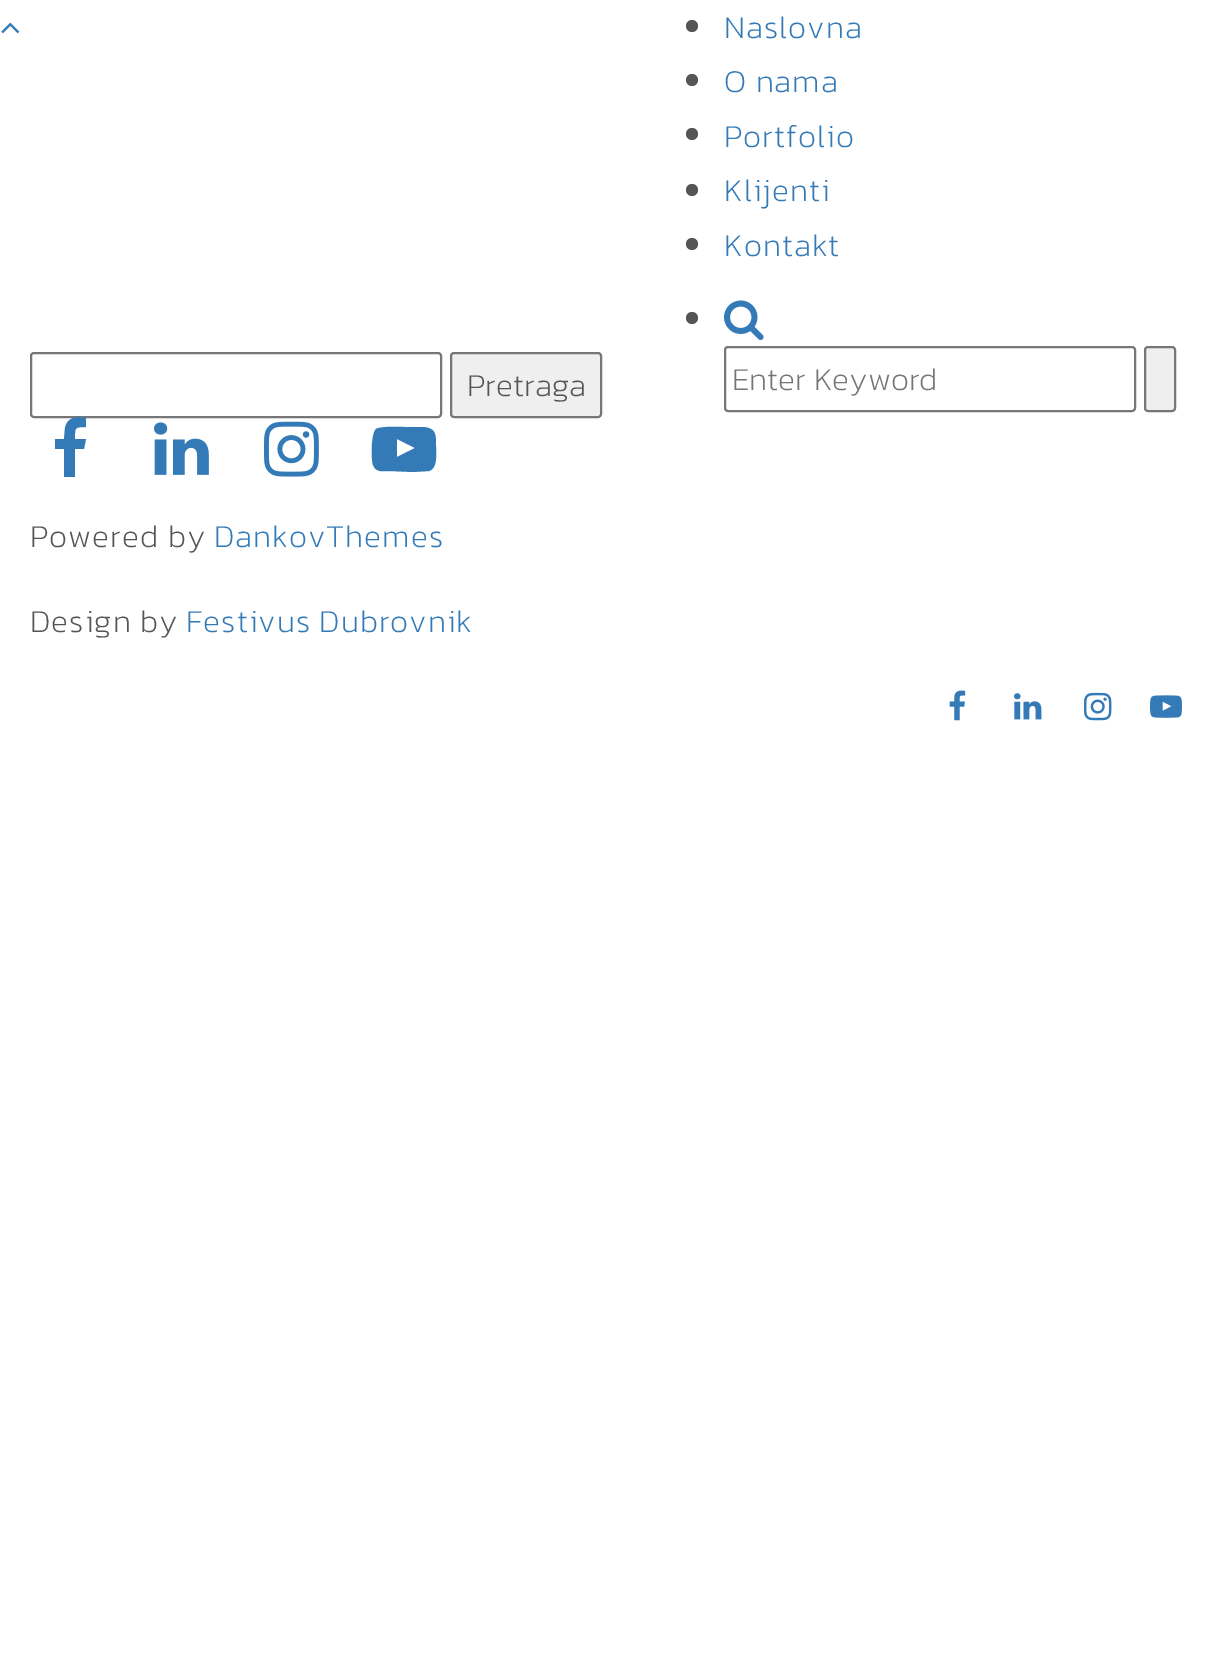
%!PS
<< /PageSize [1227 1659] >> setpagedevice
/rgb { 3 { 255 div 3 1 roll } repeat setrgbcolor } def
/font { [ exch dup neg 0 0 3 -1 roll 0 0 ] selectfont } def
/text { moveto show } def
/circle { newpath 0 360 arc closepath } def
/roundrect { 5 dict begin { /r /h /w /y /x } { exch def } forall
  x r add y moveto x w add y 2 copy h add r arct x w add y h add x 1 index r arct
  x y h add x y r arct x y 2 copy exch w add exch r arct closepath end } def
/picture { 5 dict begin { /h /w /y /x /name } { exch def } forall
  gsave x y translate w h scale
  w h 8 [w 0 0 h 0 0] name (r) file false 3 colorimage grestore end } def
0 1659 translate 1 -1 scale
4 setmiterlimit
255 255 255 rgb
0 0 1227 1659 rectfill
(img_01.rgb) 1 22 19 12 picture
85 85 85 rgb
692 26 6 circle fill
692 80 6 circle fill
692 134 6 circle fill
692 190 6 circle fill
692 244 6 circle fill
692 318 6 circle fill
(img_02.rgb) 724 300 40 41 picture
118 118 118 rgb
2 setlinewidth
725 347 410 64 3 roundrect stroke
239 239 239 rgb
1145 347 30 64 3 roundrect gsave fill grestore
118 118 118 rgb
stroke
31 353 410 64 3 roundrect stroke
239 239 239 rgb
451 353 150 64 3 roundrect gsave fill grestore
118 118 118 rgb
stroke
51 122 183 rgb
86 418 moveto -9 -2 -19 -1 -21 10 rcurveto -1 11 rlineto -9 0 rlineto 0 10 rlineto 9 0 rlineto 0 28 rlineto 11 0 rlineto 0 -28 rlineto 9 0 rlineto 2 -10 rlineto -11 0 rlineto 0 -11 -1 -12 11 -12 rcurveto closepath fill
(img_03.rgb) 154 422 55 53 picture
(img_04.rgb) 264 421 55 56 picture
397 457 moveto 0 -18 rlineto 18 9 rlineto closepath 404 427 moveto -5 0 -23 -1 -28 2 rcurveto -5 5 -5 29 -3 36 rcurveto 1 2 2 4 4 5 rcurveto 4 2 9 1 13 1 rcurveto 23 1 rlineto 16 -1 rlineto 9 -3 7 -18 7 -25 rcurveto 0 -12 0 -18 -13 -19 rcurveto closepath fill
(img_05.rgb) 949 690 17 31 picture
(img_06.rgb) 1014 693 28 27 picture
(img_07.rgb) 1084 692 28 29 picture
(img_08.rgb) 1150 695 32 23 picture
/Kanit-ExtraLight 32 font
724 38 moveto 1 0 (Naslovna) ashow
724 92 moveto 1 0 (O nama) ashow
724 147 moveto 1 0 (Portfolio) ashow
724 201 moveto 1 0 (Klijenti) ashow
724 256 moveto 1 0 (Kontakt) ashow
117 117 117 rgb
(Enter Keyword) 732 390 text
85 85 85 rgb
(Pretraga) 467 396 text
30 547 moveto 1 0 (Powered by) ashow
51 122 183 rgb
214 547 moveto 1 0 (DankovThemes) ashow
85 85 85 rgb
30 632 moveto 1 0 (Design by) ashow
51 122 183 rgb
186 632 moveto 1 0 (Festivus Dubrovnik) ashow
showpage
